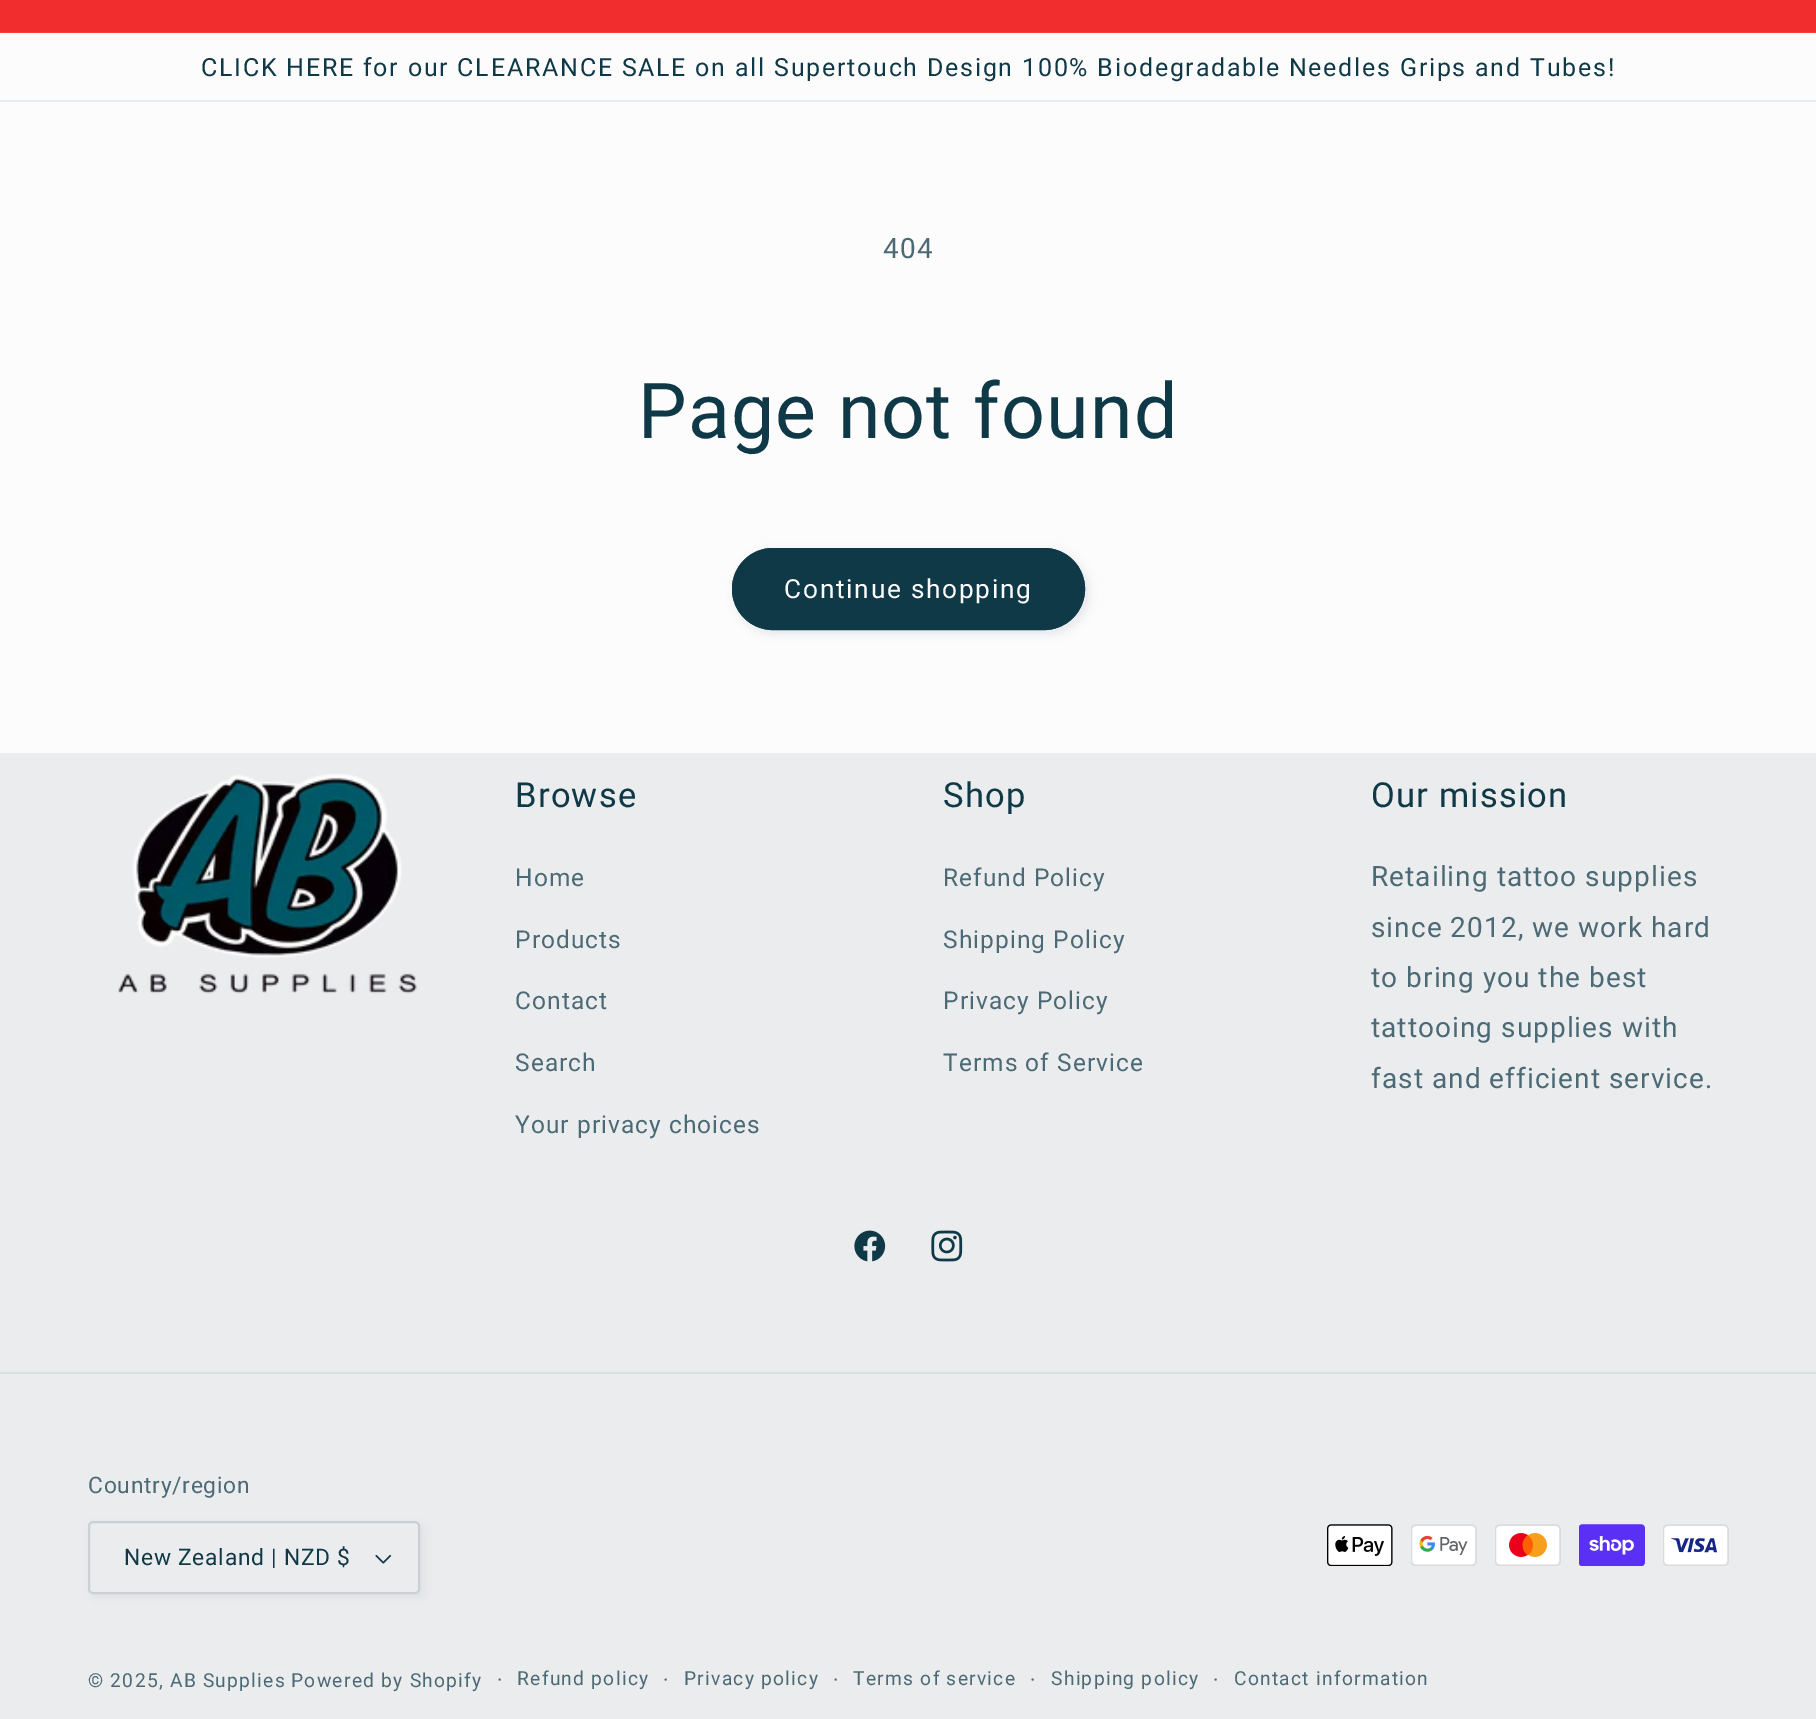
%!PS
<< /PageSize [1816 1719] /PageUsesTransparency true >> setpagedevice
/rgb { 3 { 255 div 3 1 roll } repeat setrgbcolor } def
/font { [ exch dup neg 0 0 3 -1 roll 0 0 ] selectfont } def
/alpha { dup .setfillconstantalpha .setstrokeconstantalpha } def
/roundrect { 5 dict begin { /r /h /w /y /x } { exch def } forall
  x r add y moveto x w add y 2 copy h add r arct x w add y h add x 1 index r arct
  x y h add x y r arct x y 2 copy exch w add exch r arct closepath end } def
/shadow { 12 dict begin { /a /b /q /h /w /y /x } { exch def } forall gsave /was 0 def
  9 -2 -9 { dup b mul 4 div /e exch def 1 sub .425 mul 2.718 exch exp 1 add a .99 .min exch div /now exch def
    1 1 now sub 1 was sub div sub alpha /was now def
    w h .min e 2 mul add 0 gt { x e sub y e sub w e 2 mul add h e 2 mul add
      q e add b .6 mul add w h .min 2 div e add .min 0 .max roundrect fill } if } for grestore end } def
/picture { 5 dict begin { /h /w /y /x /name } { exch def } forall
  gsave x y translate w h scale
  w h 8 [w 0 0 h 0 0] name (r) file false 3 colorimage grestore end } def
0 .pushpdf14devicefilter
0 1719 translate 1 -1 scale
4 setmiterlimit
252 252 252 rgb
0 0 1816 1719 rectfill
241 45 45 rgb
0 0 1816 32 rectfill
242 62 62 rgb
0 32 1816 1 rectfill
233 236 238 rgb
0 100 1816 2 rectfill
16 57 72 rgb
735 551 354 83 41.5 4.5 0.1 shadow
732 548 353 82 41 roundrect fill
2 setlinewidth
733 549 351 80 40 roundrect stroke
235 236 237 rgb
0 753 1816 966 rectfill
(img_01.rgb) 118 773 299 221 picture
(img_02.rgb) 854 1230 32 32 picture
(img_03.rgb) 931 1230 32 32 picture
217 222 224 rgb
0 1372 1816 2 rectfill
16 57 72 rgb
91 1524 333 74 5 4.5 0.05 shadow
235 236 237 rgb
88 1521 332 73 5 roundrect fill
(img_04.rgb) 375 1554 17 10 picture
202 209 212 rgb
89 1522 330 71 4 roundrect stroke
(img_05.rgb) 1327 1524 66 42 picture
(img_06.rgb) 1411 1524 66 42 picture
(img_07.rgb) 1495 1524 66 42 picture
(img_08.rgb) 1579 1524 66 42 picture
(img_09.rgb) 1663 1524 66 42 picture
/Roboto-Regular 25.03 font
16 57 72 rgb
201 76 moveto 1.75 0 (CLICK HERE for our CLEARANCE SALE on all Supertouch Design 100% Biodegradable Needles Grips and Tubes!) ashow
/Roboto-Regular 28 font
75 106 117 rgb
883 258 moveto 1.05 0 (404) ashow
/Roboto-Regular 77 font
16 57 72 rgb
638 438 moveto 1.2 0 (Page not found) ashow
/Roboto-Regular 26.25 font
252 252 252 rgb
784 598 moveto 1.75 0 (Continue shopping) ashow
/Roboto-Regular 34.5 font
16 57 72 rgb
515 807 moveto 1.2 0 (Browse) ashow
/Roboto-Regular 24.5 font
75 106 117 rgb
515 886 moveto 1.05 0 (Home) ashow
515 948 moveto 1.05 0 (Products) ashow
515 1009 moveto 1.05 0 (Contact) ashow
515 1071 moveto 1.05 0 (Search) ashow
515 1133 moveto 1.05 0 (Your privacy choices) ashow
/Roboto-Regular 34.5 font
16 57 72 rgb
943 807 moveto 1.2 0 (Shop) ashow
/Roboto-Regular 24.5 font
75 106 117 rgb
943 886 moveto 1.05 0 (Refund Policy) ashow
943 948 moveto 1.05 0 (Shipping Policy) ashow
943 1009 moveto 1.05 0 (Privacy Policy) ashow
943 1071 moveto 1.05 0 (Terms of Service) ashow
/Roboto-Regular 34.5 font
16 57 72 rgb
1371 807 moveto 1.2 0 (Our mission) ashow
/Roboto-Regular 28 font
75 106 117 rgb
1371 886 moveto 1.05 0 (Retailing tattoo supplies) ashow
1371 937 moveto 1.05 0 (since 2012, we work hard) ashow
1371 987 moveto 1.05 0 (to bring you the best) ashow
1371 1037 moveto 1.05 0 (tattooing supplies with) ashow
1371 1088 moveto 1.05 0 (fast and efficient service.) ashow
/Roboto-Regular 22.75 font
88 1493 moveto 0.75 0 (Country/region) ashow
16 57 72 rgb
124 1565 moveto 0.75 0 (New Zealand | NZD $) ashow
/Roboto-Regular 19.25 font
75 106 117 rgb
88 1687 moveto 1.25 0 (© 2025, AB Supplies) ashow
291 1687 moveto 1.25 0 (Powered by Shopify) ashow
/Roboto-Regular 21 font
497 1687 moveto 1.25 0 (·) ashow
/Roboto-Regular 19.25 font
517 1685 moveto 1.25 0 (Refund policy) ashow
/Roboto-Regular 21 font
663 1687 moveto 1.25 0 (·) ashow
/Roboto-Regular 19.25 font
684 1685 moveto 1.25 0 (Privacy policy) ashow
/Roboto-Regular 21 font
833 1687 moveto 1.25 0 (·) ashow
/Roboto-Regular 19.25 font
853 1685 moveto 1.25 0 (Terms of service) ashow
/Roboto-Regular 21 font
1030 1687 moveto 1.25 0 (·) ashow
/Roboto-Regular 19.25 font
1051 1685 moveto 1.25 0 (Shipping policy) ashow
/Roboto-Regular 21 font
1213 1687 moveto 1.25 0 (·) ashow
/Roboto-Regular 19.25 font
1234 1685 moveto 1.25 0 (Contact information) ashow
.poppdf14devicefilter showpage
